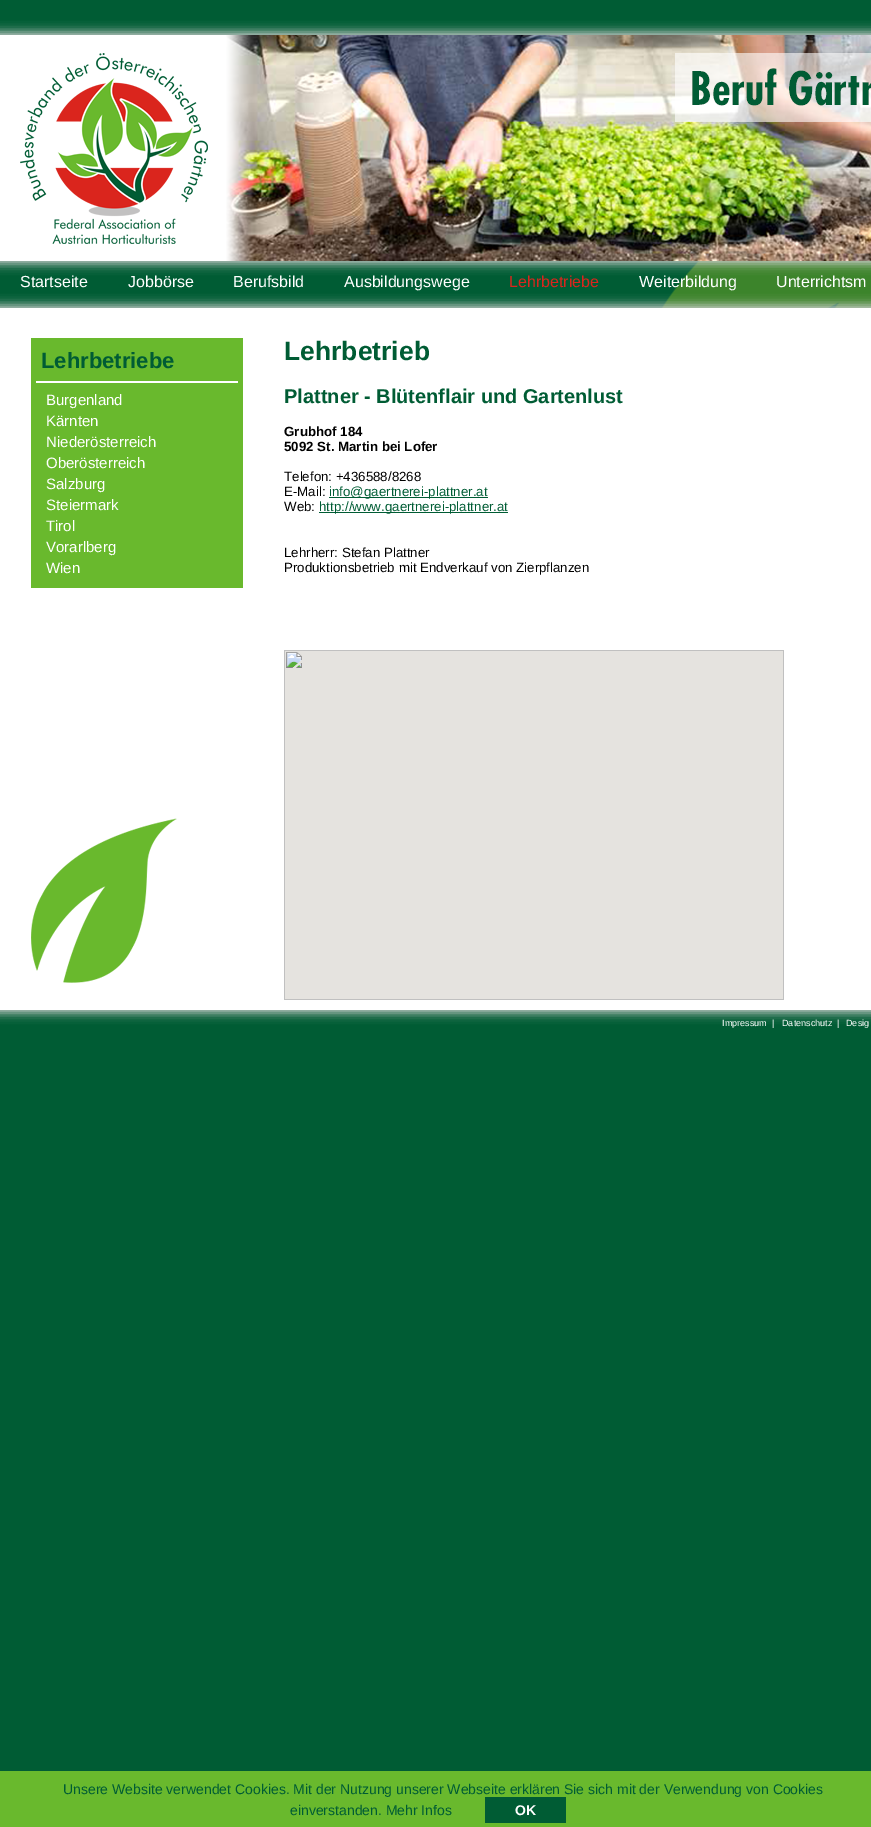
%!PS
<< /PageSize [871 1827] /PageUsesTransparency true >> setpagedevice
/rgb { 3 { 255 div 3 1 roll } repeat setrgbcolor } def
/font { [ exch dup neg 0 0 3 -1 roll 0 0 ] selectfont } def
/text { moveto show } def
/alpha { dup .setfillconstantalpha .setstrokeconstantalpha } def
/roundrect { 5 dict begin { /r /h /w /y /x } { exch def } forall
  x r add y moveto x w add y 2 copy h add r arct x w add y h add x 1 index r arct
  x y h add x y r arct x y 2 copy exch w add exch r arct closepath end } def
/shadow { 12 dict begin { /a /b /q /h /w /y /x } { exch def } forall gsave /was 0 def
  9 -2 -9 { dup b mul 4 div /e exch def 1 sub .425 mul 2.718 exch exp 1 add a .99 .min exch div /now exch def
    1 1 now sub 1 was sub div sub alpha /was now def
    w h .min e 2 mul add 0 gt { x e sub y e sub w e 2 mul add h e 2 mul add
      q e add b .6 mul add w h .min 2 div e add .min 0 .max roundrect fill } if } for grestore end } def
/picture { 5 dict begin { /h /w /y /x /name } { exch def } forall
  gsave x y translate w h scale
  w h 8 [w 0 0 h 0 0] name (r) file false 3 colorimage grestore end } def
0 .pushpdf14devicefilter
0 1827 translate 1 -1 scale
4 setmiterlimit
0 92 52 rgb
0 0 871 1827 rectfill
(img_01.rgb) 661 261 210 47 picture
207 207 207 rgb
-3 32 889 232 0 5 1 shadow
(img_02.rgb) 0 35 871 226 picture
(img_03.rgb) 20 53 188 191 picture
-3 305 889 708 0 5 1 shadow
255 255 255 rgb
0 308 871 702 rectfill
(img_04.rgb) 31 818 146 165 picture
105 185 45 rgb
31 338 212 250 rectfill
255 255 255 rgb
36 381 202 2 rectfill
0 92 52 rgb
329 497 159 1 rectfill
319 512 189 1 rectfill
(img_05.rgb) 284 650 500 350 picture
105 185 45 rgb
0 1771 871 56 rectfill
0 92 52 rgb
485 1797 81 26 rectfill
/LiberationSans-Regular 16 font
255 255 255 rgb
(Startseite) 20 287 text
(Jobbörse) 128 287 text
(Berufsbild) 233 287 text
(Ausbildungswege) 344 287 text
218 37 29 rgb
(Lehrbetriebe) 509 287 text
255 255 255 rgb
(Weiterbildung) 639 287 text
(Unterrichtsm) 776 287 text
/LiberationSans-Bold 22 font
0 92 52 rgb
(Lehrbetriebe) 41 368 text
/LiberationSans-Regular 15 font
255 255 255 rgb
(Burgenland) 46 405 text
(Kärnten) 46 426 text
(Niederösterreich) 46 447 text
(Oberösterreich) 46 468 text
(Salzburg) 46 489 text
(Steiermark) 46 510 text
(Tirol) 46 531 text
(Vorarlberg) 46 552 text
(Wien) 46 573 text
/LiberationSans-Bold 26.5 font
0 92 52 rgb
(Lehrbetrieb) 284 360 text
/LiberationSans-Bold 20 font
(Plattner - Blütenflair und Gartenlust) 284 403 text
/LiberationSans-Bold 13.3 font
0 0 0 rgb
(Grubhof 184) 284 436 text
(5092 St. Martin bei Lofer) 284 451 text
/LiberationSans-Regular 13.3 font
(Telefon: +436588/8268) 284 481 text
(E-Mail:) 284 496 text
0 92 52 rgb
(info@gaertnerei-plattner.at) 329 496 text
0 0 0 rgb
(Web:) 284 511 text
0 92 52 rgb
(http://www.gaertnerei-plattner.at) 319 511 text
0 0 0 rgb
(Lehrherr: Stefan Plattner) 284 557 text
(Produktionsbetrieb mit Endverkauf von Zierpflanzen) 284 572 text
/LiberationSans-Regular 9 font
255 255 255 rgb
(Impressum) 722 1026 text
(|) 772 1026 text
(Datenschutz) 782 1026 text
(|) 837 1026 text
(Desig) 846 1026 text
/LiberationSans-Regular 14 font
0 92 52 rgb
(Unsere Website verwendet Cookies. Mit der Nutzung unserer Webseite erklären Sie sich mit der Verwendung von Cookies) 63 1794 text
(einverstanden. Mehr Infos) 290 1815 text
/LiberationSans-Bold 14 font
255 255 255 rgb
(OK) 515 1815 text
.poppdf14devicefilter showpage
